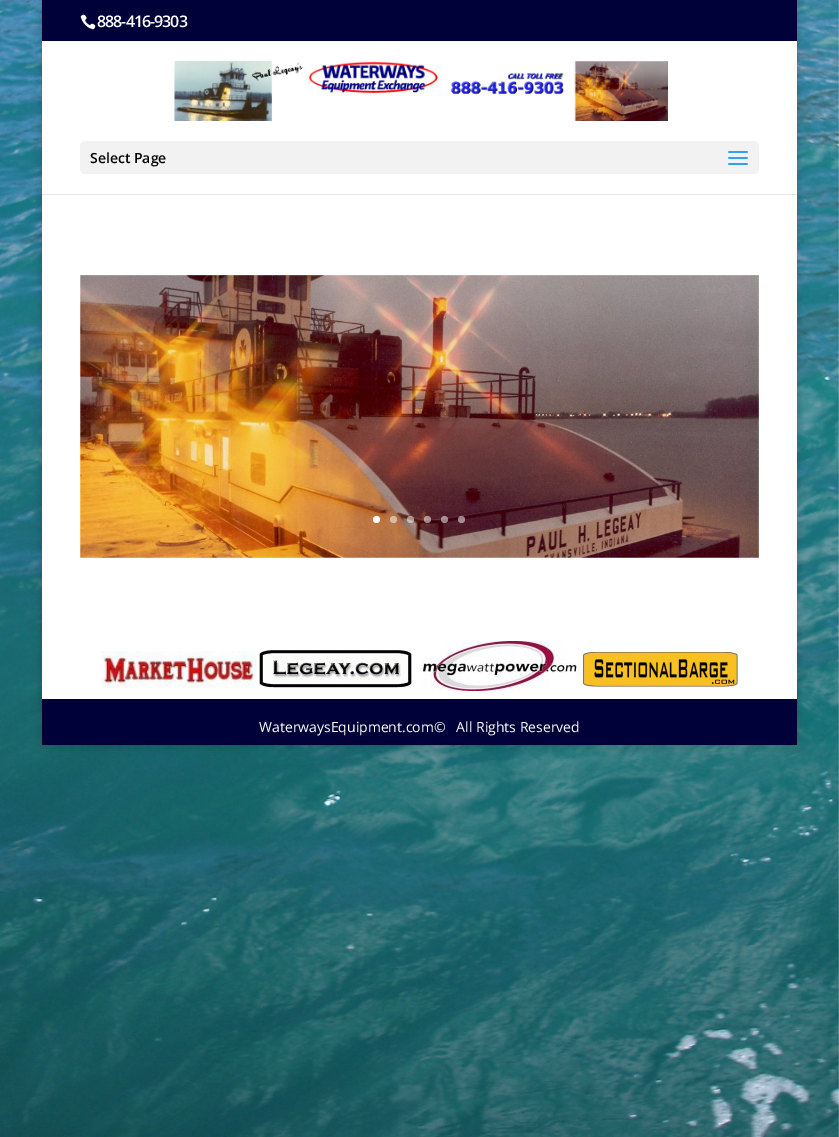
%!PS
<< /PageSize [839 1137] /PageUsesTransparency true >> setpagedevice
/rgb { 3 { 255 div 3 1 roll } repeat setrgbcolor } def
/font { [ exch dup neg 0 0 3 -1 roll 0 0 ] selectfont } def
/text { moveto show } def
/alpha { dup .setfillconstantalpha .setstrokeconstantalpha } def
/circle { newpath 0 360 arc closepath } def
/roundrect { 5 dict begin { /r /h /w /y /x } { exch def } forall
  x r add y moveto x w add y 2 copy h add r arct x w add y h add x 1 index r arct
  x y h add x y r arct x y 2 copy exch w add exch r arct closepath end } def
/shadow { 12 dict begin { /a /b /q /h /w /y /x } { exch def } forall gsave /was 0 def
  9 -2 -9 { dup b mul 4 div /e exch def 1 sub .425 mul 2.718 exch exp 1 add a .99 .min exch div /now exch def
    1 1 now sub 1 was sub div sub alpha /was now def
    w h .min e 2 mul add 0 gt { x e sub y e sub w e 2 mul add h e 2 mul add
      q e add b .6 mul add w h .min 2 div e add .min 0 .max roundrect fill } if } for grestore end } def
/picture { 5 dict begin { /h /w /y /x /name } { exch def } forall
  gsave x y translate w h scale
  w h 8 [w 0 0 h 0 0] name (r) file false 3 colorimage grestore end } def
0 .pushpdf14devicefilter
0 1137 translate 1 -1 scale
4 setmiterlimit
255 255 255 rgb
0 0 839 1137 rectfill
(img_01.rgb) 0 0 839 1137 picture
0 0 0 rgb
42 0 755 745 0 5 0.2 shadow
0 1 56 rgb
42 0 755 41 rectfill
(img_02.rgb) 80 14 16 16 picture
230 230 230 rgb
42 194 755 1 rectfill
255 255 255 rgb
42 41 755 153 rectfill
(img_03.rgb) 174 61 494 60 picture
242 242 242 rgb
80 141 679 33 5 roundrect fill
(img_04.rgb) 728 151 20 14 picture
255 255 255 rgb
42 195 755 504 rectfill
(img_05.rgb) 80 275 679 283 picture
376.5 519.5 3.5 circle fill
0.5 alpha
393.5 519.5 3.5 circle fill
410.5 519.5 3.5 circle fill
427.5 519.5 3.5 circle fill
444.5 519.5 3.5 circle fill
461.5 519.5 3.5 circle fill
1 alpha
(img_06.rgb) 101 651 155 37 picture
(img_07.rgb) 259 650 153 38 picture
(img_08.rgb) 422 641 155 50 picture
(img_09.rgb) 583 652 155 35 picture
0 1 56 rgb
42 699 755 46 rectfill
/OpenSans-SemiBold 16 font
255 255 255 rgb
97 27 moveto -1 0 (888-416-9303) ashow
/OpenSans-SemiBold 14 font
0 0 0 rgb
(Select Page) 90 163 text
/OpenSans-Regular 14 font
255 255 255 rgb
(WaterwaysEquipment.com©   All Rights Reserved) 259 732 text
.poppdf14devicefilter showpage
